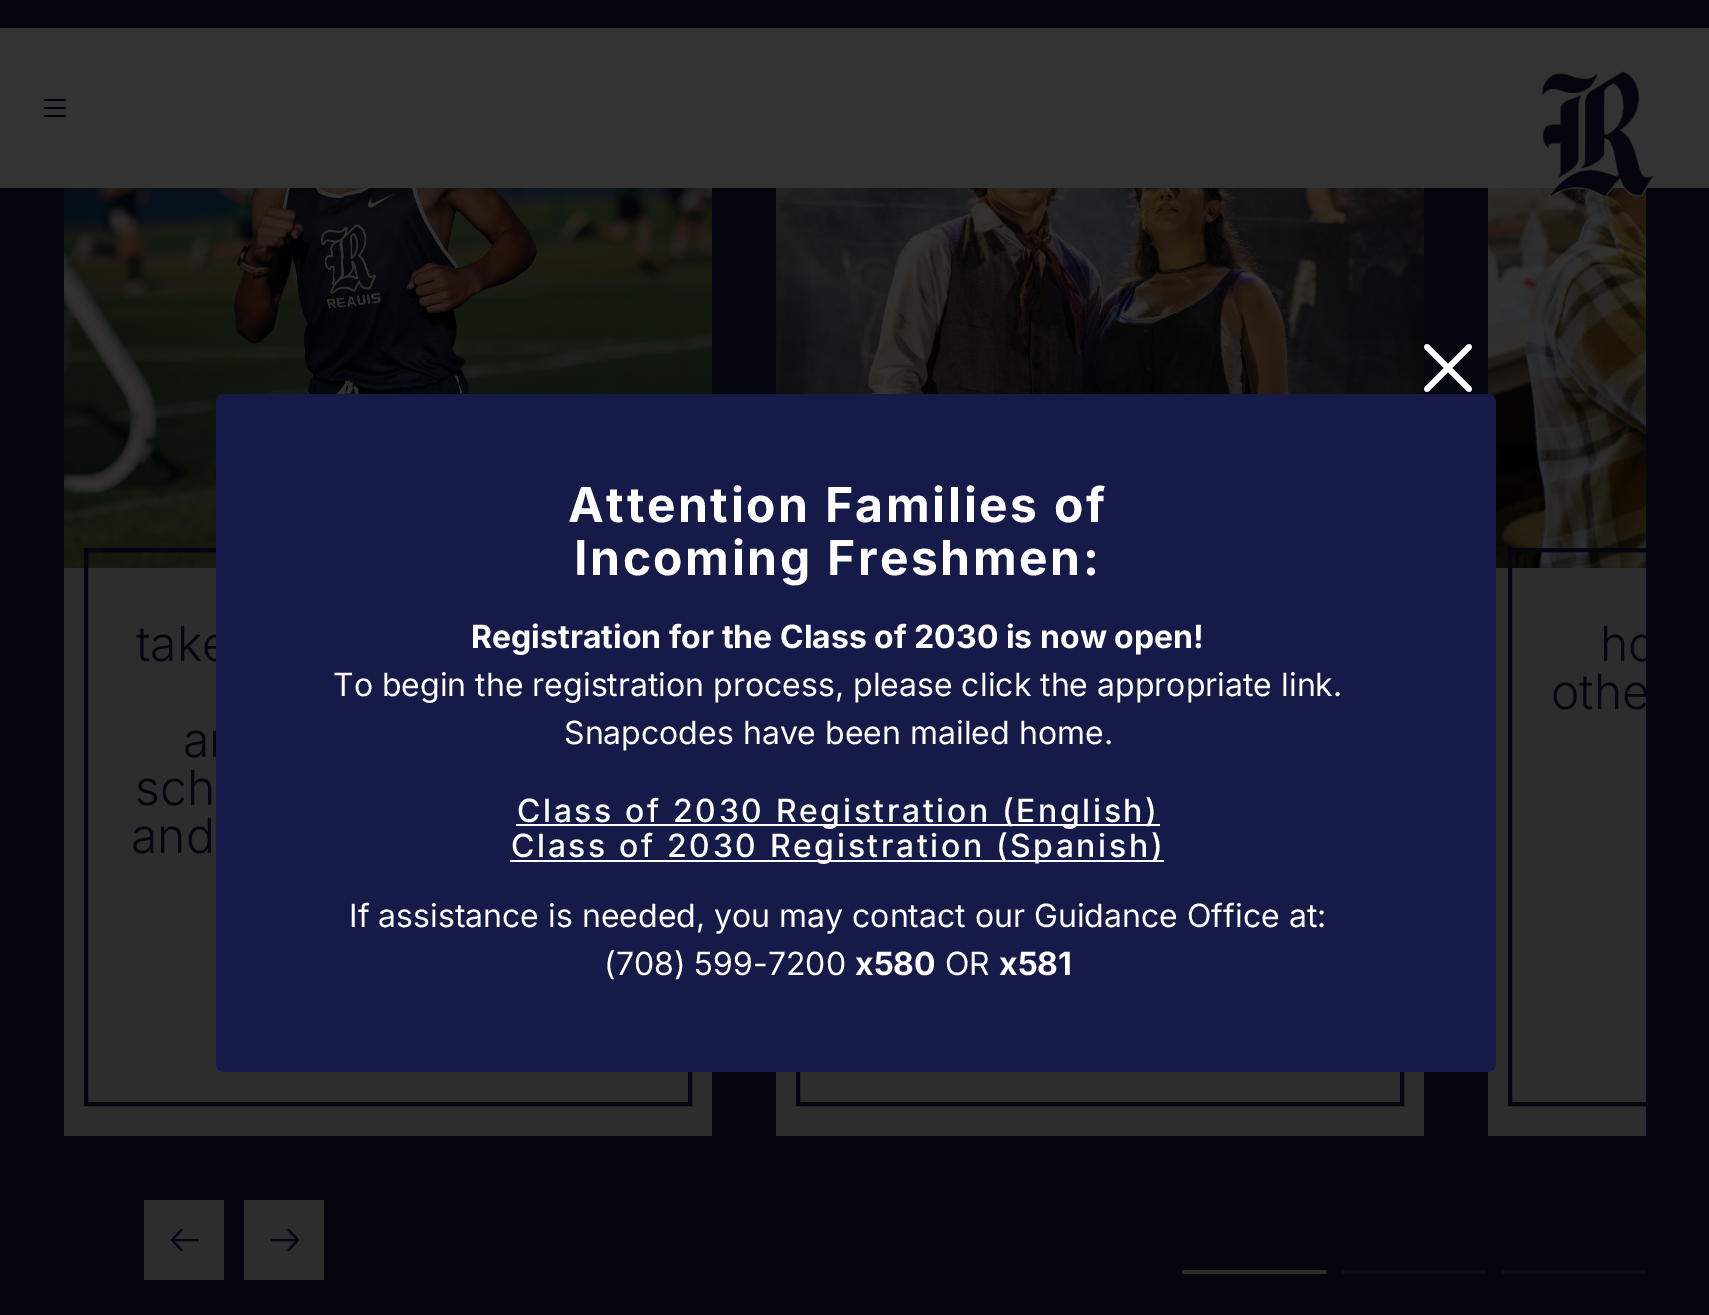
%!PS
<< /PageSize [1709 1315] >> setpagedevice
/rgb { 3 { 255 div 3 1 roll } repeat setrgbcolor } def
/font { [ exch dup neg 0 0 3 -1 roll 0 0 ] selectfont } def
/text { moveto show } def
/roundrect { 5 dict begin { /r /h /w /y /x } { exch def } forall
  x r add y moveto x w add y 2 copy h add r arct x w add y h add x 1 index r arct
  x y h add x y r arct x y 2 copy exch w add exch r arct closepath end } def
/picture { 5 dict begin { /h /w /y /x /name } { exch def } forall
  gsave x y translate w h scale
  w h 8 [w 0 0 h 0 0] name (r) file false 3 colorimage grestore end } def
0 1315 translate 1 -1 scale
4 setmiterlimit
5 5 16 rgb
0 0 1709 1315 rectfill
51 51 51 rgb
0 28 1709 160 rectfill
(img_01.rgb) 44 99 22 18 picture
(img_06.rgb) 1488 188 158 380 picture
(img_02.rgb) 1541 71 113 127 picture
(img_03.rgb) 1424 344 48 48 picture
(img_04.rgb) 64 188 648 380 picture
45 45 45 rgb
64 568 648 568 rectfill
5 5 16 rgb
4 setlinewidth
86 550 604 554 rectstroke
(img_05.rgb) 776 188 648 206 picture
45 45 45 rgb
776 1072 648 64 rectfill
5 5 16 rgb
798 550 604 554 rectstroke
45 45 45 rgb
1488 568 158 568 rectfill
gsave
64 0 1582 1136 rectclip
5 5 16 rgb
1510 550 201 554 rectstroke
grestore
144 1200 80 80 rectfill
5 5 16 rgb
2 setlinewidth
1 setlinecap
1 setlinejoin
172 1240 moveto 26 0 rlineto 172 1240 moveto 9.5 10 rlineto 172 1240 moveto 9.5 -10 rlineto stroke
45 45 45 rgb
244 1200 80 80 rectfill
5 5 16 rgb
298 1240 moveto -26 0 rlineto 298 1240 moveto -9.5 -10 rlineto 298 1240 moveto -9.5 10 rlineto stroke
45 45 45 rgb
1182 1270 144 4 rectfill
13 13 22 rgb
1342 1270 144 4 rectfill
1502 1270 144 4 rectfill
/Inter-Light 48 font
5 5 16 rgb
(take) 136 661 text
(ar) 183 757 text
22 26 73 rgb
216 394 1280 678 8 roundrect fill
/Inter-Bold 32 font
255 255 255 rgb
(x581) 999 975 text
/Inter-Regular 32 font
(OR) 945 975 text
/Inter-Bold 32 font
(x580) 855 975 text
/Inter-Regular 32 font
(\(708\) 599-7200) 604 975 text
(If assistance is needed, you may contact our Guidance Office at:) 349 927 text
510 860 654 2 rectfill
/Inter-Medium 32 font
511 857 moveto 2.6 0 (Class of 2030 Registration \(Spanish\)) ashow
516 824 644 2 rectfill
517 822 moveto 2.6 0 (Class of 2030 Registration \(English\)) ashow
/Inter-Regular 32 font
(Snapcodes have been mailed home.) 564 744 text
(To begin the registration process, please click the appropriate link.) 333 696 text
/Inter-Bold 32 font
(Registration for the Class of 2030 is now open!) 471 648 text
/Inter-Bold 48 font
574 575 moveto 2.6 0 (Incoming Freshmen:) ashow
568 522 moveto 2.6 0 (Attention Families of) ashow
/Inter-Light 48 font
5 5 16 rgb
(sch) 135 805 text
(and) 131 853 text
gsave
64 0 1582 1136 rectclip
(ho) 1600 661 text
(othe) 1551 709 text
grestore
showpage
